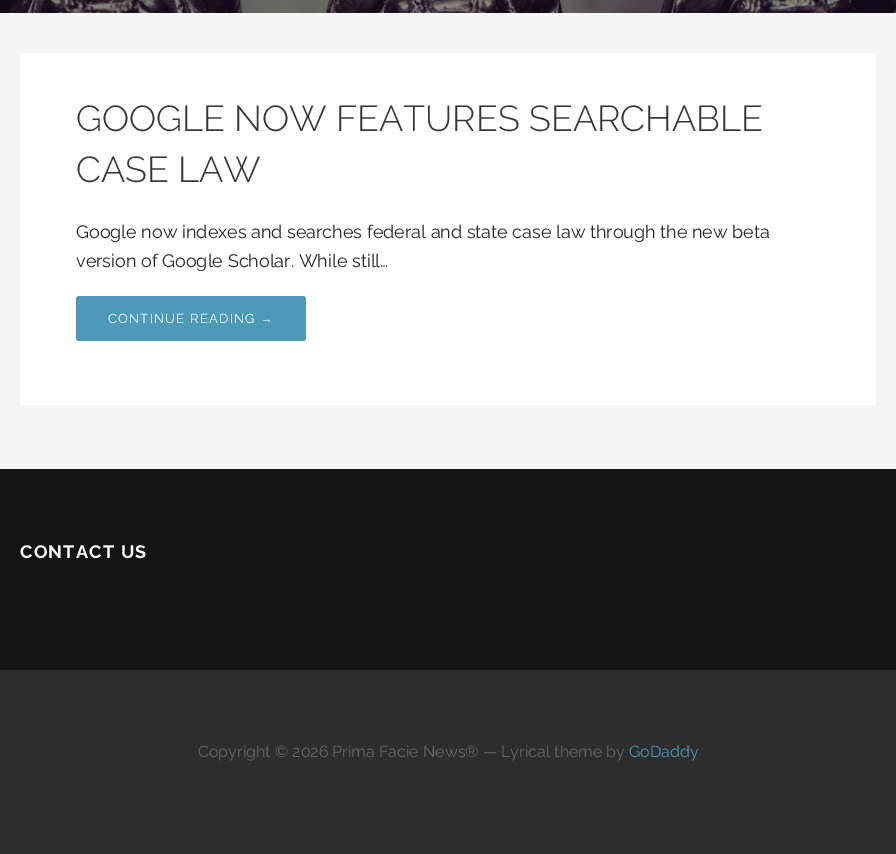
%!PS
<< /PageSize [896 854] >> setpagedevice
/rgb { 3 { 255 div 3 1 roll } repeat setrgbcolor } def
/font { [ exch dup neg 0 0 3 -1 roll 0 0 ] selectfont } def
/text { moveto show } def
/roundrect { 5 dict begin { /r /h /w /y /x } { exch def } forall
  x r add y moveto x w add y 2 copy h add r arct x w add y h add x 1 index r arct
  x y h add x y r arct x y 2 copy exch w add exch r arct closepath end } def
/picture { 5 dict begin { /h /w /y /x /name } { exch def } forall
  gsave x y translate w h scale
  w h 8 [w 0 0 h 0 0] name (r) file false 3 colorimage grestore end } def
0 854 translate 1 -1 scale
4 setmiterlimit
245 245 245 rgb
0 0 896 854 rectfill
(img_01.rgb) 0 0 896 13 picture
255 255 255 rgb
20 53 856 352 rectfill
76 153 186 rgb
76 296 230 45 3 roundrect fill
20 20 20 rgb
0 469 896 201 rectfill
45 45 45 rgb
0 670 896 184 rectfill
/Raleway-Light 36 font
53 53 53 rgb
(GOOGLE NOW FEATURES SEARCHABLE) 76 131 text
(CASE LAW) 76 182 text
/Raleway-Regular 18 font
37 37 37 rgb
(Google now indexes and searches federal and state case law through the new beta) 76 238 text
(version of Google Scholar. While still…) 76 267 text
/Raleway-Regular 13 font
255 255 255 rgb
108 323 moveto 1.25 0 (CONTINUE READING) ashow
/LiberationSans-Regular 13 font
260 323 moveto 1.25 0 (→) ashow
/Raleway-Bold 18 font
20 558 moveto 1.25 0 (CONTACT US) ashow
/Raleway-Regular 16 font
104 104 104 rgb
(Copyright © 2026 Prima Facie News® — Lyrical theme by) 198 757 text
76 153 186 rgb
(GoDaddy) 629 757 text
showpage
